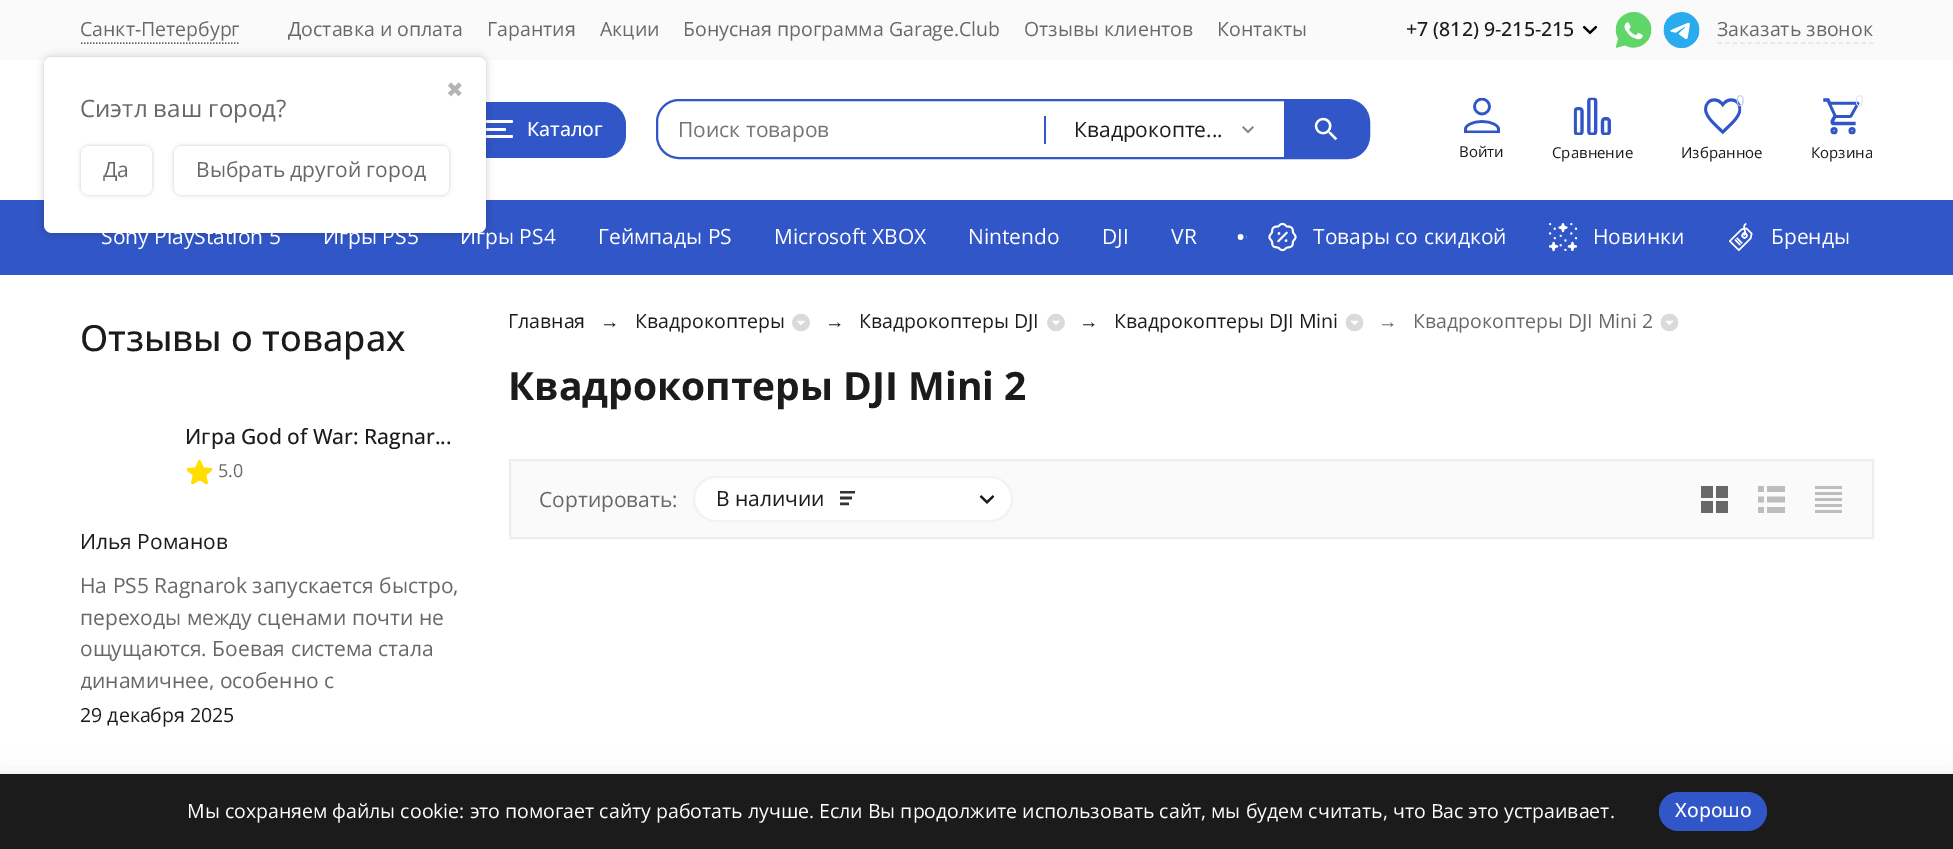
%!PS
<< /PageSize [1953 849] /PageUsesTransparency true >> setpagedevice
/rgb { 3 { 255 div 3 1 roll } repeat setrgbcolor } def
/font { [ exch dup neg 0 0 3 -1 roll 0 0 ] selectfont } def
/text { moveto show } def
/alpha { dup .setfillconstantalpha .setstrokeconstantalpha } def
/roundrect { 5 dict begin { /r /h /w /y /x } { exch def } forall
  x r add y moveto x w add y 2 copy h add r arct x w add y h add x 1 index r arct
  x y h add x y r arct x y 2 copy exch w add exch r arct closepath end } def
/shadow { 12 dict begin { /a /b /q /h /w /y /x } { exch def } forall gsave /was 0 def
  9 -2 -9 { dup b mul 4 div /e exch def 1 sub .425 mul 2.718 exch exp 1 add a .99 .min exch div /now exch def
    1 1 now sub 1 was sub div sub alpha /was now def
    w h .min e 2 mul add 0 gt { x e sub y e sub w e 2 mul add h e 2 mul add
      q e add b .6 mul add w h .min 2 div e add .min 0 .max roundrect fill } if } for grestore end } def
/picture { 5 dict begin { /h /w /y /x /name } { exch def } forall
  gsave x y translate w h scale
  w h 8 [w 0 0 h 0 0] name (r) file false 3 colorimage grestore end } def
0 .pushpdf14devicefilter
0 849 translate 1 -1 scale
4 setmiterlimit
255 255 255 rgb
0 0 1953 849 rectfill
250 250 250 rgb
0 0 1953 60 rectfill
104 104 104 rgb
1.5 setlinewidth
[1.5 1.5] 0 setdash
81 43 moveto 159 0 rlineto stroke
49 86 199 rgb
464 102 162 56 23 roundrect fill
255 255 255 rgb
486 120 27 3 1.5 roundrect fill
486 128 20 3 1.5 roundrect fill
486 135 27 3 1.5 roundrect fill
49 86 199 rgb
0 200 1953 75 rectfill
0 0 0 rgb
44 57 442 176 8 4 0.2 shadow
255 255 255 rgb
44 57 442 176 8 roundrect fill
0 0 0 rgb
81 146 71 49 8 2 0.2 shadow
255 255 255 rgb
81 146 71 49 8 roundrect fill
0 0 0 rgb
174 146 275 49 8 2 0.2 shadow
255 255 255 rgb
174 146 275 49 8 roundrect fill
(img_01.rgb) 1582 25 16 10 picture
(img_02.rgb) 1615 12 37 36 picture
(img_03.rgb) 1663 12 37 36 picture
229 229 229 rgb
[4.5 3.07] 0 setdash
1717.5 43 moveto 156 0 rlineto stroke
49 86 199 rgb
2 setlinewidth
[] 0 setdash
657 100 712 58 22 roundrect stroke
1044 116 2 28 rectfill
(img_04.rgb) 1242 126 12 8 picture
1284 101 moveto 64 0 rlineto 11 0 20 9 20 20 rcurveto 0 17 rlineto 0 11 -9 20 -20 20 rcurveto -64 0 rlineto closepath fill
(img_05.rgb) 1314 117 24 24 picture
(img_06.rgb) 1464 97 36 37 picture
(img_07.rgb) 1573 97 38 38 picture
(img_08.rgb) 1704 98 38 37 picture
(img_09.rgb) 1823 98 37 37 picture
(img_10.rgb) 1237 234 10 6 picture
(img_11.rgb) 1268 222 29 30 picture
(img_12.rgb) 1548 223 30 29 picture
(img_13.rgb) 1729 223 24 29 picture
(img_14.rgb) 186 459 27 26 picture
(img_15.rgb) 792 313 18 19 picture
(img_15.rgb) 1047 313 18 19 picture
(img_16.rgb) 1345 313 19 19 picture
(img_16.rgb) 1660 313 19 19 picture
250 250 250 rgb
510 460 moveto 1363 0 rlineto 0 78 rlineto -1363 0 rlineto closepath gsave fill grestore
238 238 238 rgb
stroke
255 255 255 rgb
694 477 318 44 22 roundrect gsave fill grestore
242 242 242 rgb
stroke
(img_17.rgb) 840 491 15 15 picture
(img_18.rgb) 979 495 16 9 picture
(img_19.rgb) 1701 486 27 27 picture
(img_20.rgb) 1758 486 27 27 picture
(img_21.rgb) 1815 486 27 27 picture
0 0 0 rgb
0 774 1953 75 0 11 0.07 shadow
27 27 27 rgb
0 774 1953 75 rectfill
49 86 199 rgb
1659 792 108 39 19.5 roundrect fill
/OpenSans-Regular 19.5 font
104 104 104 rgb
(Санкт-Петербург) 80 36 text
/DejaVuSans-Regular 21 font
180 180 180 rgb
(✖) 446 97 text
/OpenSans-Regular 24 font
104 104 104 rgb
(Сиэтл ваш город?) 80 117 text
/OpenSans-Regular 21 font
(Да) 103 177 text
(Выбрать другой город) 196 177 text
/OpenSans-Regular 19.5 font
(Доставка и оплата) 288 36 text
(Гарантия) 487 36 text
(Акции) 600 36 text
(Бонусная программа Garage.Club) 683 36 text
(Отзывы клиентов) 1024 36 text
(Контакты) 1217 36 text
/OpenSans-Medium 19.5 font
27 27 27 rgb
(+7 \(812\) 9-215-215) 1406 36 text
/OpenSans-Regular 19.5 font
104 104 104 rgb
(Заказать звонок) 1717 36 text
/OpenSans-Medium 19.5 font
255 255 255 rgb
(Каталог) 527 136 text
/OpenSans-Regular 21 font
117 117 117 rgb
(Поиск товаров) 678 137 text
27 27 27 rgb
(Квадрокопте...) 1074 137 text
/OpenSans-Regular 15 font
(Войти) 1459 157 text
(Сравнение) 1552 158 text
194 205 238 rgb
(0) 1736 106 text
27 27 27 rgb
(Избранное) 1681 158 text
223 229 246 rgb
(0) 1855 106 text
27 27 27 rgb
(Корзина) 1811 158 text
/OpenSans-Regular 21 font
255 255 255 rgb
(Sony PlayStation 5) 101 244 text
(Игры PS5) 323 244 text
(Игры PS4) 460 244 text
(Геймпады PS) 598 244 text
(Microsoft XBOX) 774 244 text
(Nintendo) 968 244 text
(DJI) 1102 244 text
(VR) 1171 244 text
(Товары со скидкой) 1313 244 text
(Новинки) 1593 244 text
(Бренды) 1771 244 text
/OpenSans-Medium 36 font
27 27 27 rgb
(Отзывы о товарах) 80 351 text
/OpenSans-Medium 21 font
(Игра God of War: Ragnar...) 185 444 text
/OpenSans-Regular 18 font
104 104 104 rgb
(5.0) 218 477 text
/OpenSans-Regular 21 font
27 27 27 rgb
(Илья Романов) 80 549 text
104 104 104 rgb
(На PS5 Ragnarok запускается быстро,) 80 593 text
(переходы между сценами почти не) 80 625 text
(ощущаются. Боевая система стала) 80 656 text
gsave
81 570 383 120 rectclip
(динамичнее, особенно с) 80 688 text
grestore
/OpenSans-Regular 19.5 font
27 27 27 rgb
(29 декабря 2025) 80 722 text
(Главная) 508 328 text
/LiberationSans-Regular 19.5 font
(→) 600 328 text
/OpenSans-Regular 19.5 font
(Квадрокоптеры) 635 328 text
/LiberationSans-Regular 19.5 font
(→) 825 328 text
/OpenSans-Regular 19.5 font
(Квадрокоптеры DJI) 859 328 text
/LiberationSans-Regular 19.5 font
(→) 1079 328 text
/OpenSans-Regular 19.5 font
(Квадрокоптеры DJI Mini) 1114 328 text
/LiberationSans-Regular 19.5 font
104 104 104 rgb
(→) 1378 328 text
/OpenSans-Regular 19.5 font
(Квадрокоптеры DJI Mini 2) 1413 328 text
/OpenSans-Bold 39 font
27 27 27 rgb
(Квадрокоптеры DJI Mini 2) 508 400 text
/OpenSans-Regular 21 font
104 104 104 rgb
(Сортировать:) 539 507 text
27 27 27 rgb
(В наличии) 716 506 text
/OpenSans-Regular 19.5 font
255 255 255 rgb
(Мы сохраняем файлы cookie: это помогает сайту работать лучше. Если Вы продолжите использовать сайт, мы будем считать, что Вас это устраивает.) 187 818 text
/OpenSans-Medium 19.5 font
(Хорошо) 1675 817 text
.poppdf14devicefilter showpage
